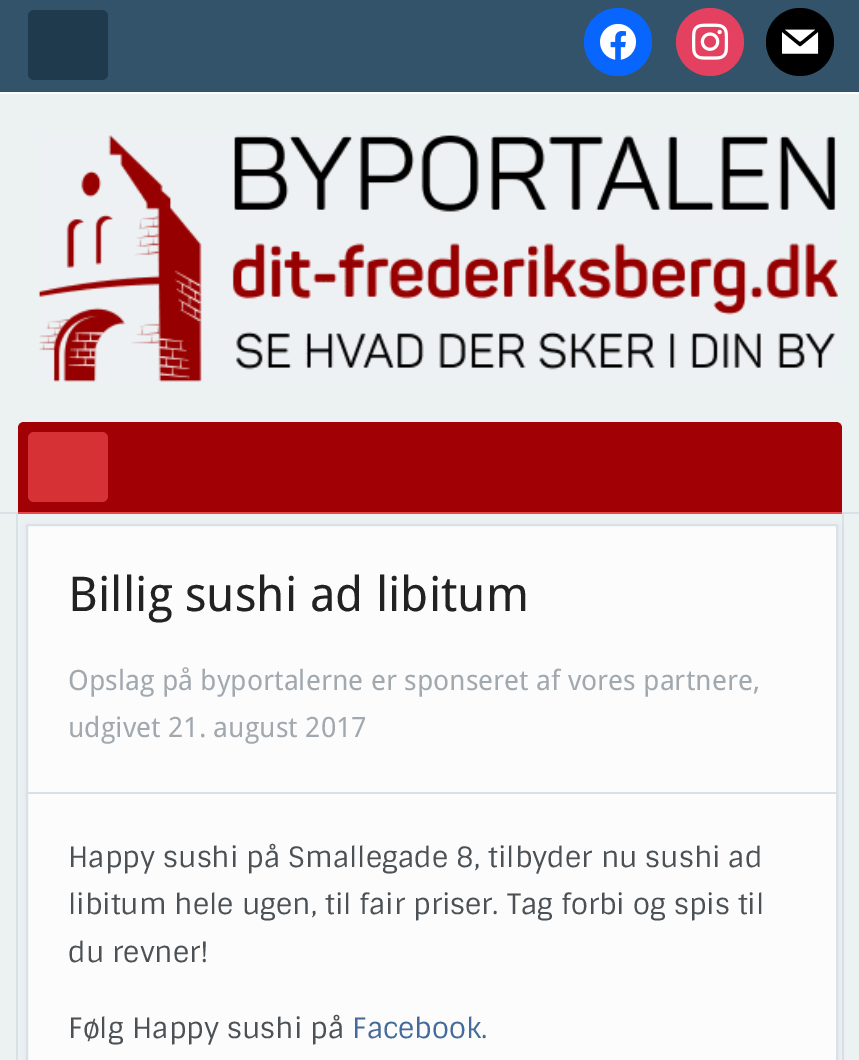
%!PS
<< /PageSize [859 1060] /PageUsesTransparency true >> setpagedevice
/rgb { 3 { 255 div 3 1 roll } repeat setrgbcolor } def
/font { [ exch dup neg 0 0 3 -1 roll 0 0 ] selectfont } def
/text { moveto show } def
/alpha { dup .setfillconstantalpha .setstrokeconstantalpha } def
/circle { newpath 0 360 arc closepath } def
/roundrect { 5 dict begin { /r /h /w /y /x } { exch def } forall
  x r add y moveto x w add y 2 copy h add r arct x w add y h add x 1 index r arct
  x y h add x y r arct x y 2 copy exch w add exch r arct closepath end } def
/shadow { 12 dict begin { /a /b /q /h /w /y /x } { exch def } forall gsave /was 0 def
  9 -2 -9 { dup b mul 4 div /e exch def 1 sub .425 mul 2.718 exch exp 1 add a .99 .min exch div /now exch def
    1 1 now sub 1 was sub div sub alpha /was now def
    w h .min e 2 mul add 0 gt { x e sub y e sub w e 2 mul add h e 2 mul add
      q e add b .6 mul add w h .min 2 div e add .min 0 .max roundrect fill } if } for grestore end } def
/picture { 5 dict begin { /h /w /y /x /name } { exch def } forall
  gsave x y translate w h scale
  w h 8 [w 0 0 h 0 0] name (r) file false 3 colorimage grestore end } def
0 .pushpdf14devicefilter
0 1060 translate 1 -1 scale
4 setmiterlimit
236 242 242 rgb
0 0 859 1060 rectfill
217 224 230 rgb
0 512 859 2 rectfill
51 83 106 rgb
0 0 859 92 rectfill
255 255 255 rgb
0 92 859 2 rectfill
31 57 77 rgb
28 10 80 70 6 roundrect fill
8 102 255 rgb
618 42 34 circle fill
(img_01.rgb) 600 23 36 37 picture
228 64 95 rgb
710 42 34 circle fill
(img_02.rgb) 692 23 37 37 picture
0 0 0 rgb
800 42 34 circle fill
(img_03.rgb) 782 29 37 25 picture
(img_04.rgb) 38 135 800 247 picture
161 0 4 rgb
24 422 moveto 812 0 rlineto 3.5 0 6 2.5 6 6 rcurveto 0 86 rlineto -824 0 rlineto 0 -86 rlineto 0 -3.5 2.5 -6 6 -6 rcurveto closepath fill
233 72 76 rgb
18 512 824 2 rectfill
214 49 53 rgb
28 432 80 70 6 roundrect fill
217 224 230 rgb
16 514 moveto 828 0 rlineto 0 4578 rlineto 0 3 -3 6 -6 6 rcurveto -816 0 rlineto -3 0 -6 -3 -6 -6 rcurveto closepath 18 514 moveto 824 0 rlineto 0 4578 rlineto 0 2 -2 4 -4 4 rcurveto -816 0 rlineto -2 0 -4 -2 -4 -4 rcurveto closepath eofill
74 95 116 rgb
26 526 812 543 0 3 0.08 shadow
252 252 252 rgb
27 525 moveto 810 0 rlineto 0 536 rlineto -810 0 rlineto closepath gsave fill grestore
217 224 230 rgb
2 setlinewidth
stroke
28 792 808 2 rectfill
/DroidSans-Regular 48 font
34 34 34 rgb
(Billig sushi ad libitum) 68 611 text
/DroidSans-Regular 28 font
161 169 175 rgb
(Opslag på byportalerne er sponseret af vores partnere,) 68 690 text
(udgivet 21. august 2017) 68 737 text
/Sintony-Regular 28 font
76 81 85 rgb
(Happy sushi på Smallegade 8, tilbyder nu sushi ad) 68 867 text
(libitum hele ugen, til fair priser. Tag forbi og spis til) 68 914 text
(du revner!) 68 962 text
(Følg Happy sushi på) 68 1038 text
68 107 155 rgb
(Facebook.) 352 1038 text
.poppdf14devicefilter showpage
